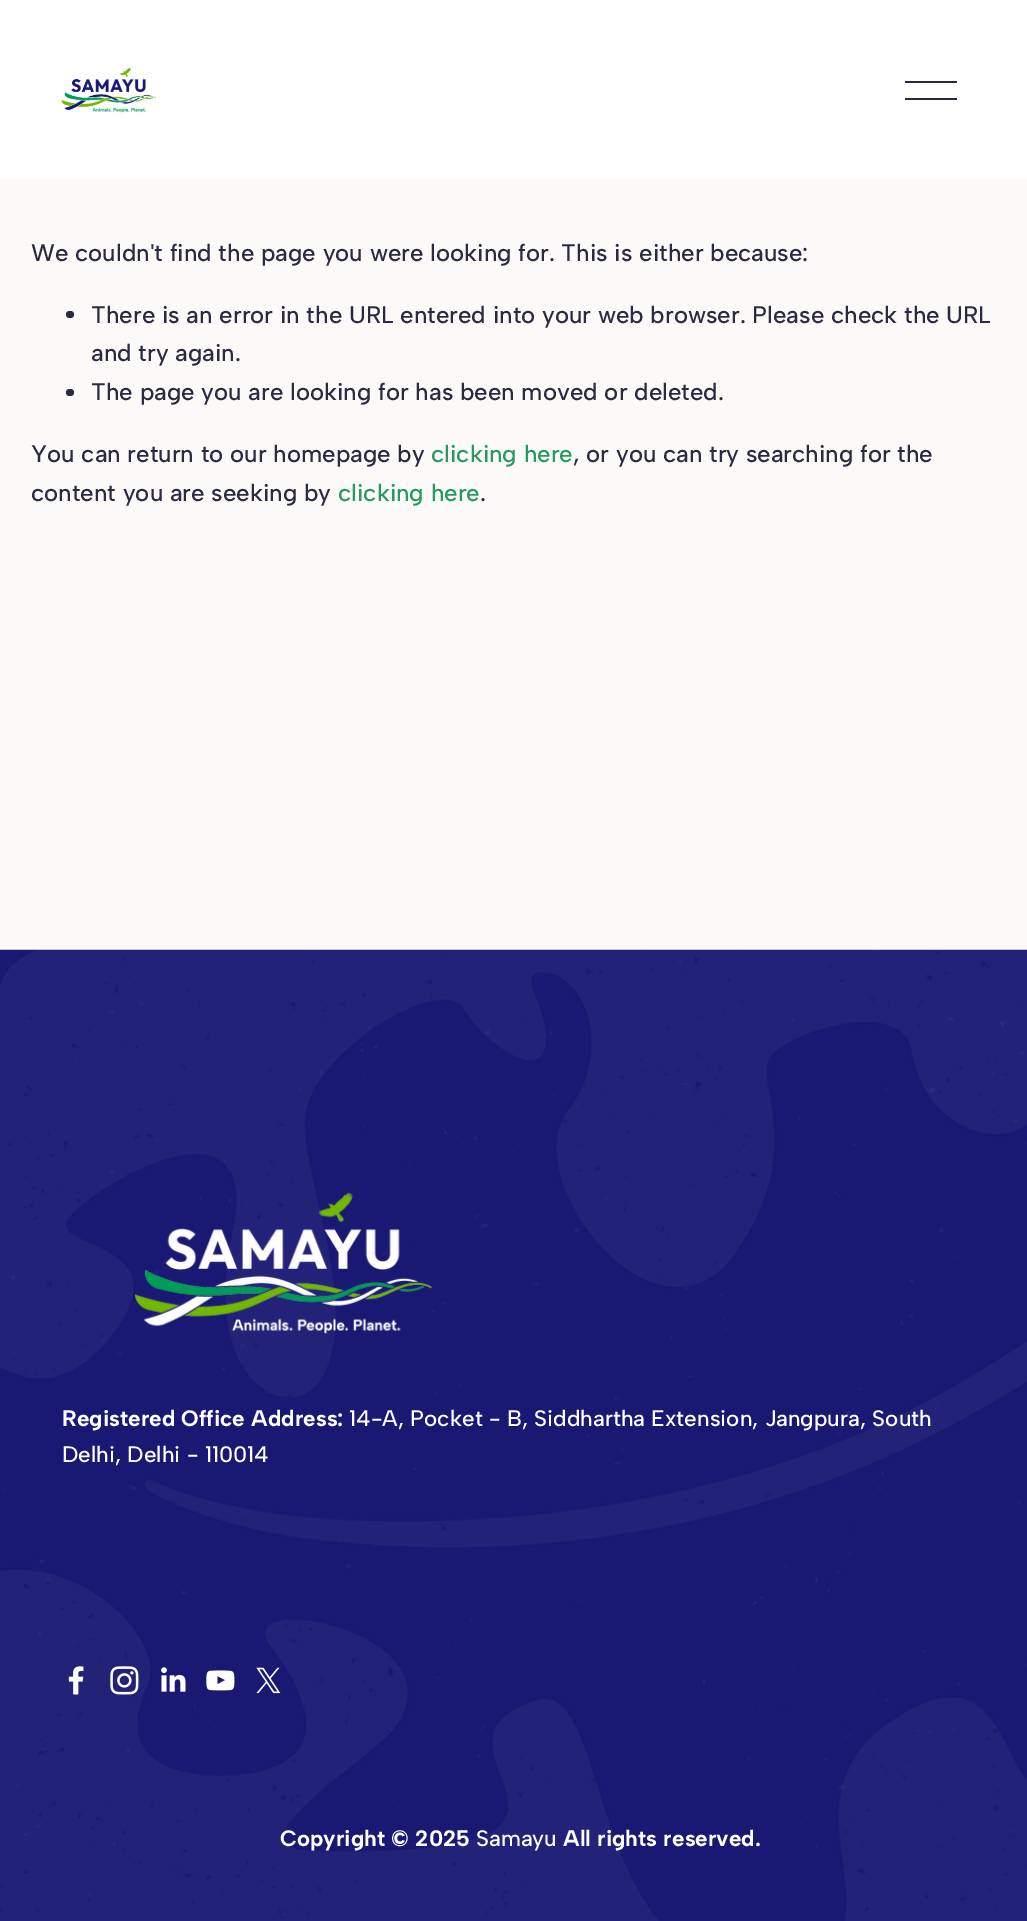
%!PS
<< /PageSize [1027 1921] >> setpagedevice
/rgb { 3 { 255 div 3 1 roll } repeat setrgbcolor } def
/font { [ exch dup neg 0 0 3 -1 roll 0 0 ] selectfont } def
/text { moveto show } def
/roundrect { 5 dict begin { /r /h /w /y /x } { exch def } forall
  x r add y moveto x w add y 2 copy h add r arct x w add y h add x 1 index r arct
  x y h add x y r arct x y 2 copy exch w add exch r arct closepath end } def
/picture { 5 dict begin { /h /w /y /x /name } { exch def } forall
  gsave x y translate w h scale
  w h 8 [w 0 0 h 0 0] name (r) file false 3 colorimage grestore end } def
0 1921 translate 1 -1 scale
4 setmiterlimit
251 250 248 rgb
0 0 1027 1921 rectfill
255 255 255 rgb
0 0 1027 179 rectfill
(img_01.rgb) 61 67 96 46 picture
42 42 66 rgb
905 81 52 2 rectfill
905 98 52 2 rectfill
66 311 8 7 3.5 roundrect fill
66 389 8 7 3.5 roundrect fill
(img_02.rgb) 0 949 1027 972 picture
(img_03.rgb) 135 1192 297 142 picture
(img_04.rgb) 68 1666 16 29 picture
(img_05.rgb) 110 1666 29 29 picture
(img_06.rgb) 161 1667 25 25 picture
(img_07.rgb) 206 1670 29 21 picture
(img_08.rgb) 256 1667 25 27 picture
/AlbertSans-Medium 24 font
(We couldn't find the page you were looking for. This is either because:) 31 261 text
(There is an error in the URL entered into your web browser. Please check the URL) 91 323 text
(and try again.) 91 361 text
(The page you are looking for has been moved or deleted.) 91 400 text
(You can return to our homepage by) 31 462 text
38 155 95 rgb
(clicking here) 431 462 text
42 42 66 rgb
(, or you can try searching for the) 573 462 text
(content you are seeking by) 31 501 text
38 155 95 rgb
(clicking here) 338 501 text
42 42 66 rgb
(.) 480 501 text
/AlbertSans-Bold 22.4 font
255 255 255 rgb
(Registered Office Address:) 62 1426 text
/AlbertSans-Medium 22.4 font
(14-A, Pocket - B, Siddhartha Extension, Jangpura, South) 349 1426 text
(Delhi, Delhi - 110014) 62 1462 text
/AlbertSans-Bold 22.4 font
(Copyright © 2025) 280 1846 text
/AlbertSans-Medium 22.4 font
(Samayu) 476 1846 text
/AlbertSans-Bold 22.4 font
(All rights reserved.) 563 1846 text
showpage
